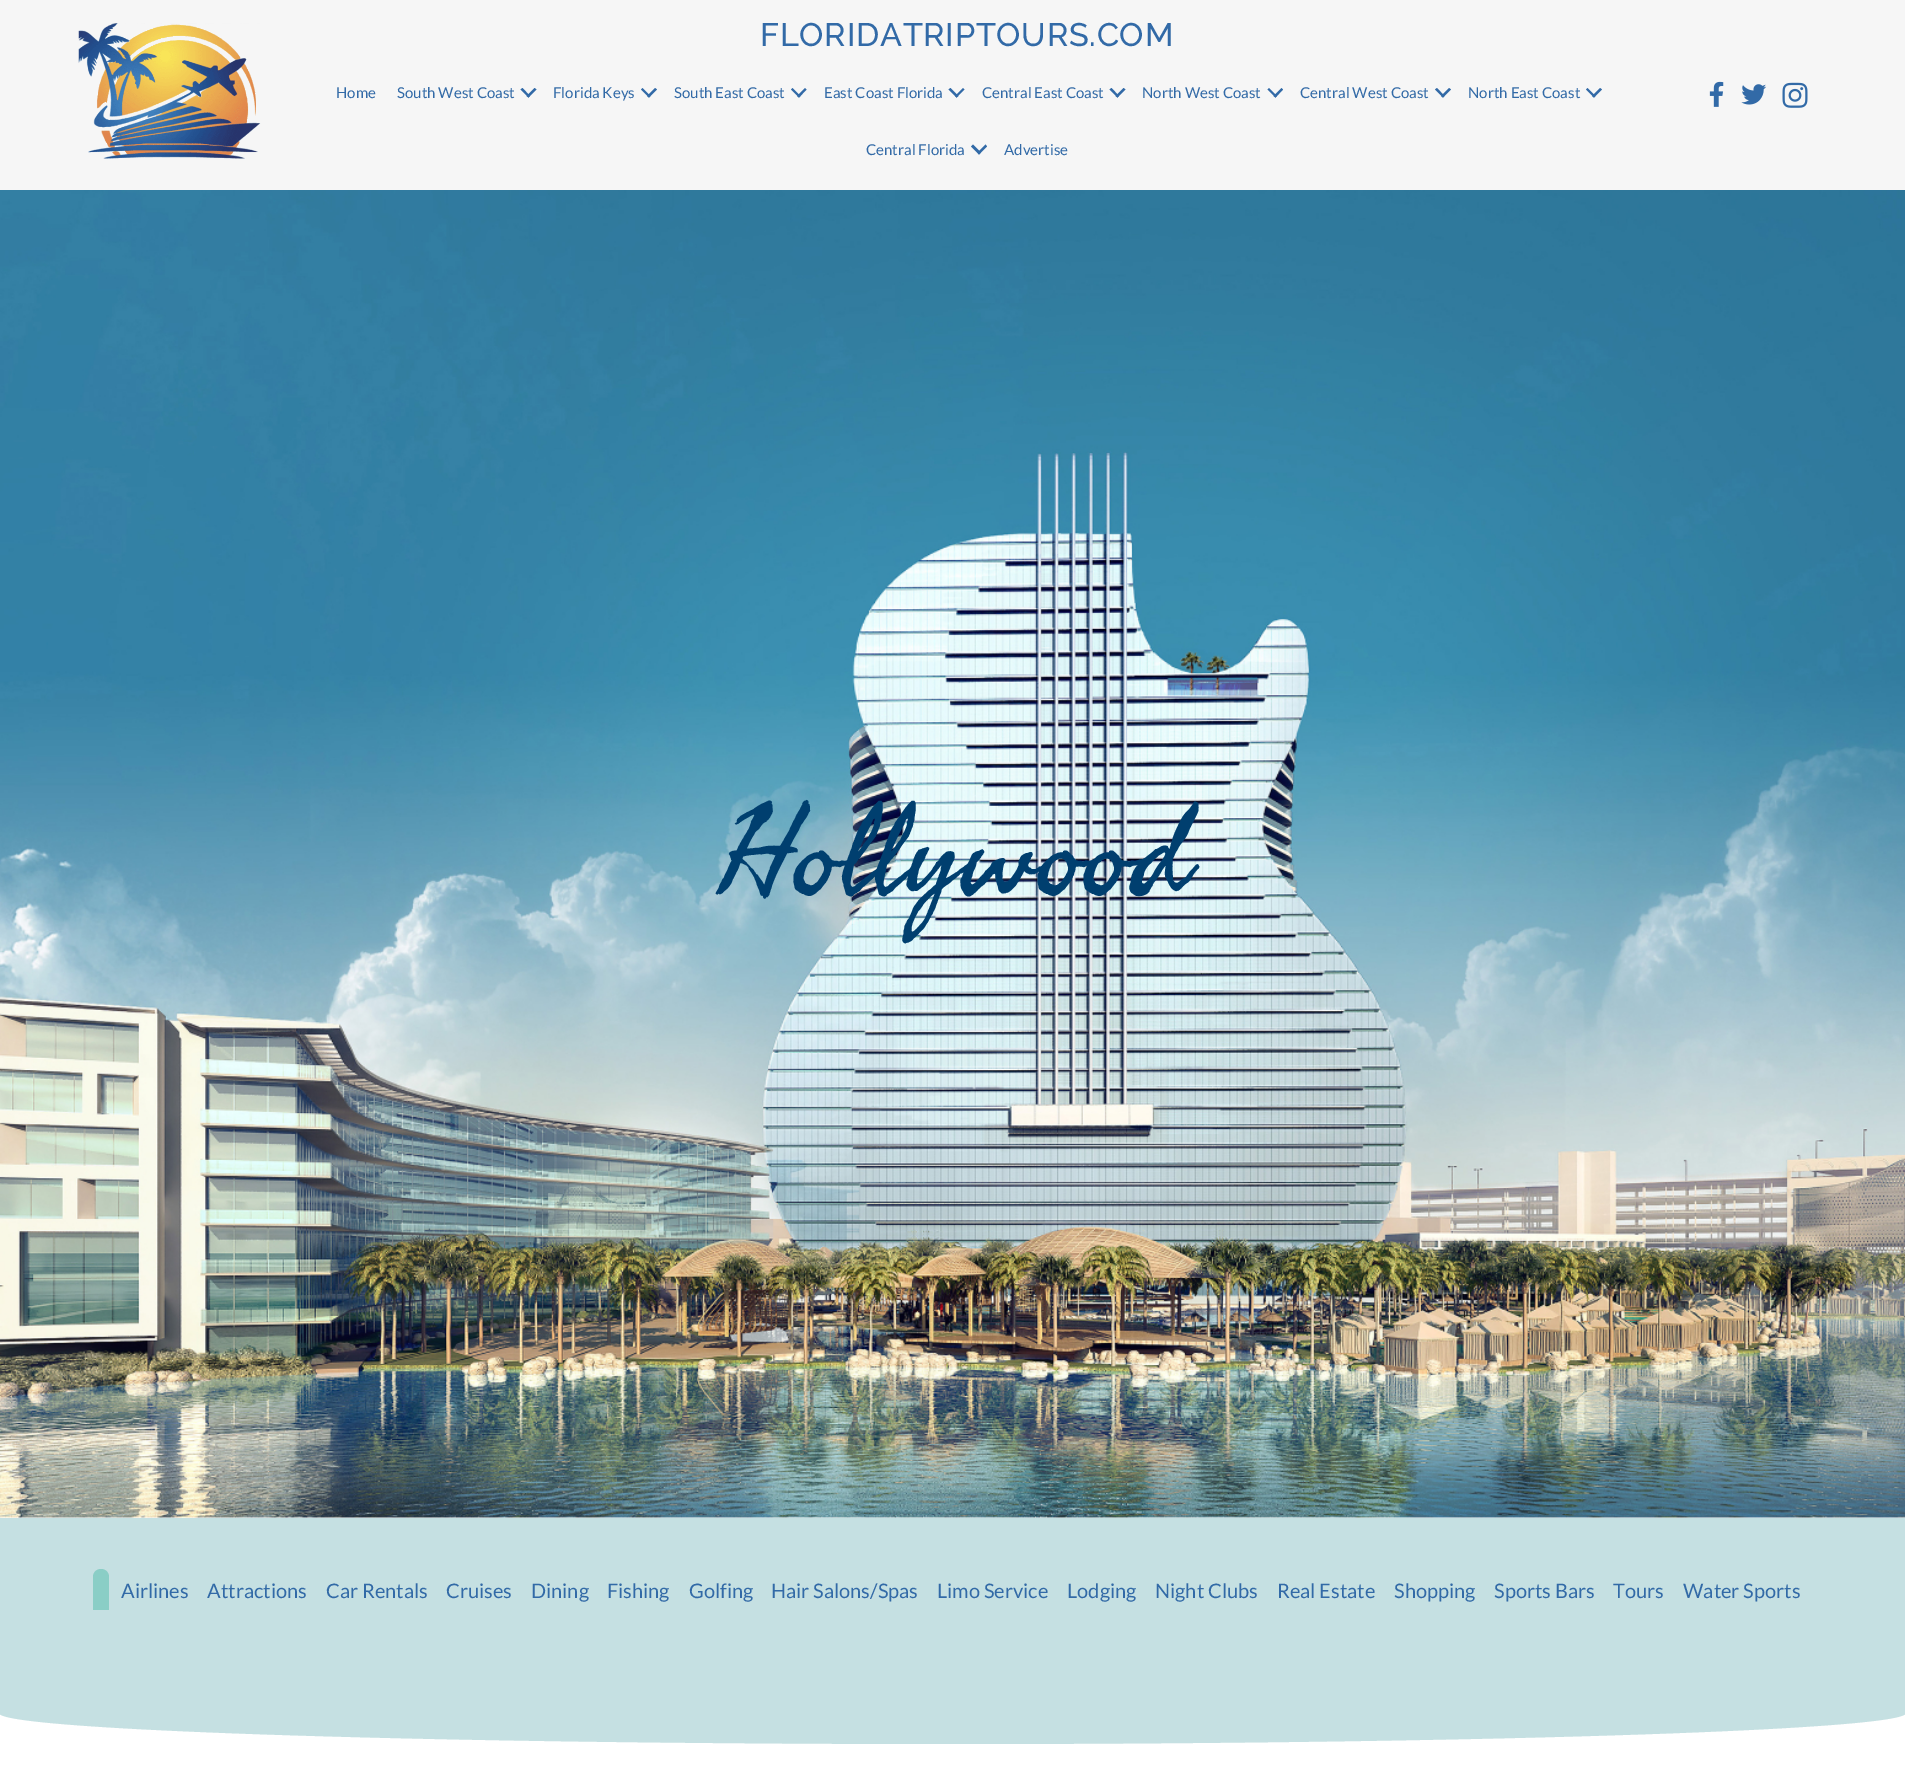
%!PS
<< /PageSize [1905 1769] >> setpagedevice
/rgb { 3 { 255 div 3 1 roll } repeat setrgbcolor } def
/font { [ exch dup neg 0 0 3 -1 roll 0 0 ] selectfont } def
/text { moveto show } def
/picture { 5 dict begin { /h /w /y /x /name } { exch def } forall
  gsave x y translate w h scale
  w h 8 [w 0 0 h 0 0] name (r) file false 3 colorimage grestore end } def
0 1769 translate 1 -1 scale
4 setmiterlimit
255 255 255 rgb
0 0 1905 1769 rectfill
246 246 246 rgb
0 0 1905 190 rectfill
(img_01.rgb) 78 23 183 136 picture
50 106 167 rgb
534.5 88 moveto 2 1.5 rlineto -8 8 rlineto -2 -1.5 rlineto closepath fill
522.5 88 moveto 7.5 8 rlineto -1.5 1.5 rlineto -8 -8 rlineto closepath fill
655 88 moveto 2 1.5 rlineto -8 8 rlineto -2 -1.5 rlineto closepath fill
642.5 88 moveto 8 8 rlineto -1.5 1.5 rlineto -8 -8 rlineto closepath fill
805 88 moveto 1.5 1.5 rlineto -7.5 8 rlineto -2 -1.5 rlineto closepath fill
792.5 88 moveto 8 8 rlineto -1.5 1.5 rlineto -8 -8 rlineto closepath fill
963 88 moveto 1.5 1.5 rlineto -8 8 rlineto -1.5 -1.5 rlineto closepath fill
950.5 88 moveto 8 8 rlineto -2 1.5 rlineto -8 -8 rlineto closepath fill
1123.5 88 moveto 2 1.5 rlineto -8 8 rlineto -2 -1.5 rlineto closepath fill
1111.5 88 moveto 7.5 8 rlineto -1.5 1.5 rlineto -8 -8 rlineto closepath fill
1281.5 88 moveto 1.5 1.5 rlineto -7.5 8 rlineto -2 -1.5 rlineto closepath fill
1269 88 moveto 8 8 rlineto -1.5 1.5 rlineto -8 -8 rlineto closepath fill
1449 88 moveto 2 1.5 rlineto -8 8 rlineto -2 -1.5 rlineto closepath fill
1437 88 moveto 7.5 8 rlineto -1.5 1.5 rlineto -8 -8 rlineto closepath fill
1600 88 moveto 2 1.5 rlineto -8 8 rlineto -2 -1.5 rlineto closepath fill
1587.5 88 moveto 8 8 rlineto -1.5 1.5 rlineto -8 -8 rlineto closepath fill
985.5 144.5 moveto 1.5 2 rlineto -8 8 rlineto -1.5 -2 rlineto closepath fill
973 144.5 moveto 8 8 rlineto -2 2 rlineto -8 -8 rlineto closepath fill
(img_02.rgb) 1709 81 15 26 picture
(img_03.rgb) 1741 84 26 21 picture
(img_04.rgb) 1782 82 26 26 picture
(img_05.rgb) 0 190 1905 1328 picture
197 224 226 rgb
0 1518 1905 195 rectfill
138 206 198 rgb
101 1569 moveto 4.5 0 8 3.5 8 8 rcurveto 0 33 rlineto -16 0 rlineto 0 -33 rlineto 0 -4.5 3.5 -8 8 -8 rcurveto closepath fill
gsave
0 1713 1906 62 rectclip
197 224 226 rgb
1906 1712 moveto 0 1 rlineto 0 17 -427 31 -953 31 rcurveto -527 0 -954 -14 -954 -31 rcurveto closepath fill
grestore
/Raleway-Medium 32.5 font
50 106 167 rgb
760 46 moveto 0.75 0 (FLORIDATRIPTOURS.COM) ashow
/Lato-Regular 15 font
(Home) 336 98 text
(South West Coast) 397 98 text
(Florida Keys) 553 98 text
(South East Coast) 674 98 text
(East Coast Florida) 824 98 text
(Central East Coast) 982 98 text
(North West Coast) 1142 98 text
(Central West Coast) 1300 98 text
(North East Coast) 1468 98 text
(Central Florida) 866 155 text
(Advertise) 1004 155 text
/Fasthand-Regular 125 font
0 63 111 rgb
(Hollywood) 718 893 text
/Lato-Regular 20 font
50 106 167 rgb
(Airlines) 121 1598 text
(Attractions) 207 1598 text
(Car Rentals) 326 1598 text
(Cruises) 446 1598 text
(Dining) 531 1598 text
(Fishing) 607 1598 text
(Golfing) 689 1598 text
(Hair Salons/Spas) 771 1598 text
(Limo Service) 937 1598 text
(Lodging) 1067 1598 text
(Night Clubs) 1155 1598 text
(Real Estate) 1277 1598 text
(Shopping) 1394 1598 text
(Sports Bars) 1494 1598 text
(Tours) 1613 1598 text
(Water Sports) 1683 1598 text
showpage
